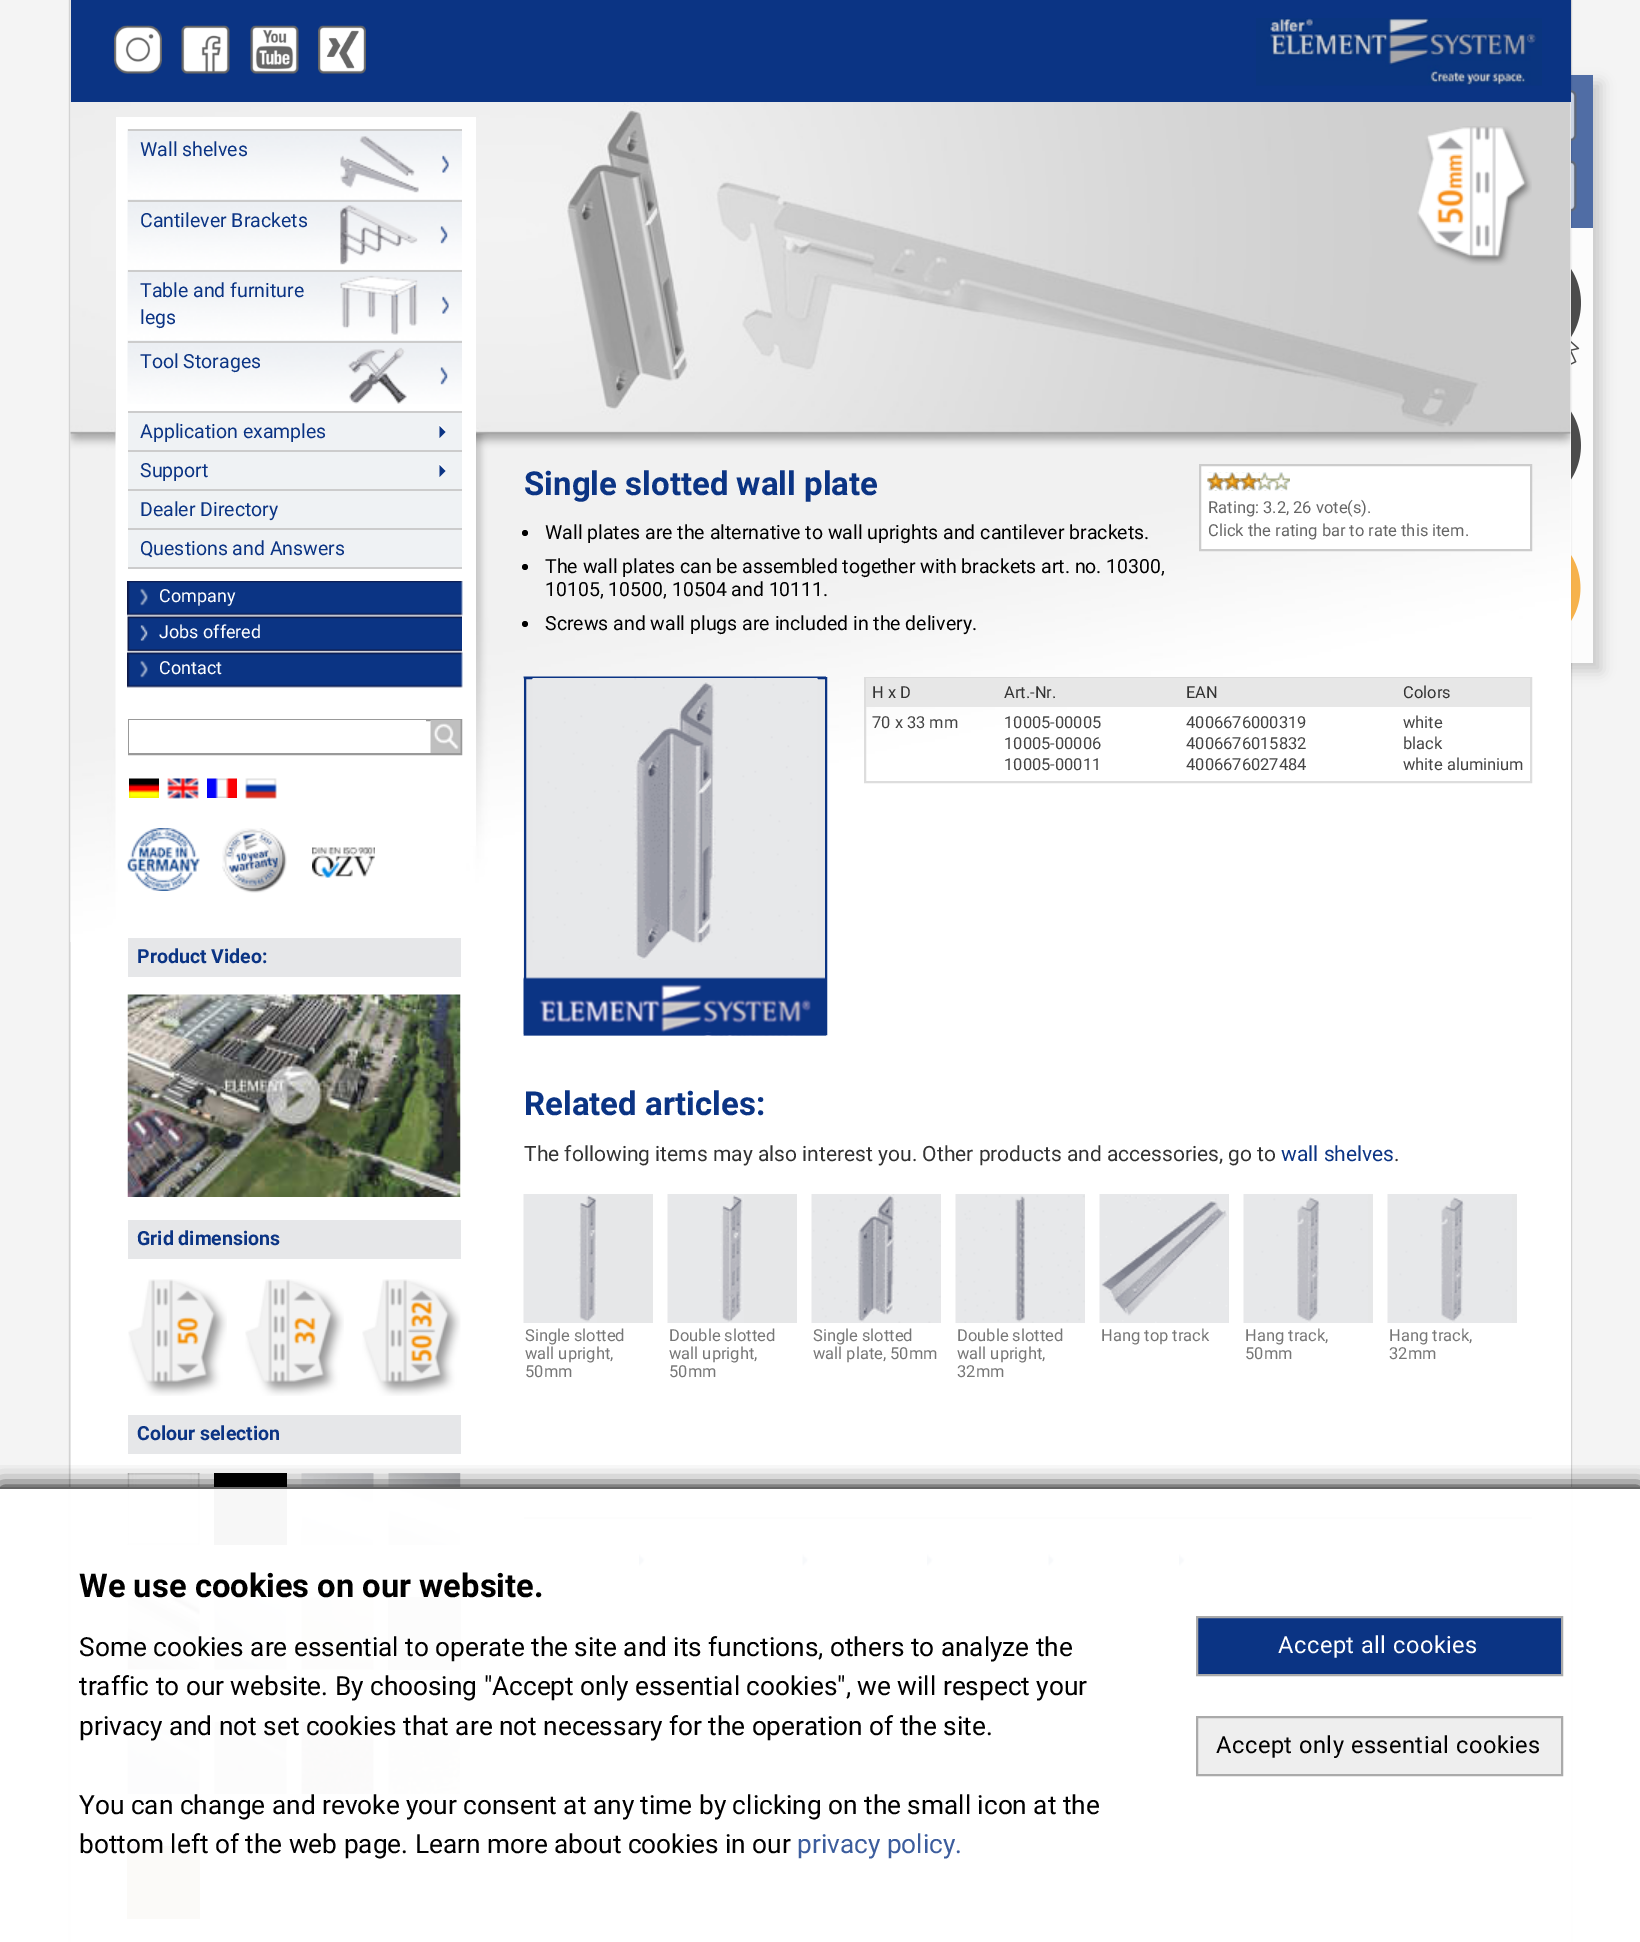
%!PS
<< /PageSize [1640 1942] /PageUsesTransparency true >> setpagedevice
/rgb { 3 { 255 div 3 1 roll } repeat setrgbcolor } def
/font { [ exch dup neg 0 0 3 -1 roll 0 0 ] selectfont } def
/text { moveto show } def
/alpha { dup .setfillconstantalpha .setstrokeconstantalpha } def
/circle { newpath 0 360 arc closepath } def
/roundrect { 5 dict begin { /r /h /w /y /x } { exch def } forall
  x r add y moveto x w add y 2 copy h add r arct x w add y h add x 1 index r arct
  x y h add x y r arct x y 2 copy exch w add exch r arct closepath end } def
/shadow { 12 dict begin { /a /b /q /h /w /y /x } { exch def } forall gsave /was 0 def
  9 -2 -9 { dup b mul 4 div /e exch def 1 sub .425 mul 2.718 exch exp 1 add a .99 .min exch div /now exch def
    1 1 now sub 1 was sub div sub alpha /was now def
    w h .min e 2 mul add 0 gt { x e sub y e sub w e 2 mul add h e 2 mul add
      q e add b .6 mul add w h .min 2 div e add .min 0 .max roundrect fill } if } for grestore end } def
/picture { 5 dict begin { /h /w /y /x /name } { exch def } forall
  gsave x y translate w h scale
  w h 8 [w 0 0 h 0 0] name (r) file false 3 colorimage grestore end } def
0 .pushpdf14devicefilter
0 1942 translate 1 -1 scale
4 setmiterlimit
255 255 255 rgb
0 0 1640 1942 rectfill
(img_01.rgb) 0 0 1640 1942 picture
gsave
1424 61 moveto 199 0 rlineto 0 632 rlineto -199 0 rlineto closepath 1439 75 moveto 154 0 rlineto 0 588 rlineto -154 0 rlineto closepath eoclip newpath
0 0 0 rgb
1446 83 155 588 0 7 0.17 shadow
grestore
11 52 132 rgb
71 0 1500 102 rectfill
(img_02.rgb) 114 25 48 49 picture
(img_03.rgb) 181 25 49 49 picture
(img_04.rgb) 250 25 49 49 picture
(img_05.rgb) 318 25 48 49 picture
(img_06.rgb) 1256 18 286 68 picture
255 255 255 rgb
1435 102 136 1840 rectfill
(img_07.rgb) 70 102 1501 840 picture
116 117 360 729 rectfill
(img_08.rgb) 127 129 335 275 picture
204 204 204 rgb
128 129 334 2 rectfill
128 200 334 2 rectfill
128 270 334 2 rectfill
128 341 334 2 rectfill
128 411 334 2 rectfill
239 242 244 rgb
128 413 334 37 rectfill
255 255 255 rgb
439.5 436.5 moveto 0 -12 rlineto 6 6 rlineto closepath fill
11 52 132 rgb
439.5 438 moveto 0 -12 rlineto 6 6 rlineto closepath fill
239 242 244 rgb
128 452 334 37 rectfill
204 204 204 rgb
128 450 334 2 rectfill
255 255 255 rgb
439.5 475.5 moveto 0 -12 rlineto 6 6 rlineto closepath fill
11 52 132 rgb
439.5 477 moveto 0 -12 rlineto 6 6 rlineto closepath fill
239 242 244 rgb
128 491 334 37 rectfill
204 204 204 rgb
128 489 334 2 rectfill
239 242 244 rgb
128 530 334 37 rectfill
204 204 204 rgb
128 528 334 2 rectfill
128 567 334 2 rectfill
(img_09.rgb) 127 581 336 35 picture
(img_10.rgb) 127 616 335 36 picture
(img_11.rgb) 127 652 336 36 picture
153 153 153 rgb
2 setlinewidth
129 720 332 34 rectstroke
255 255 255 rgb
129 720 297 33 rectfill
(img_12.rgb) 430 720 31 33 picture
(img_13.rgb) 129 778 30 20 picture
(img_14.rgb) 167 778 32 21 picture
(img_15.rgb) 207 778 30 20 picture
(img_16.rgb) 245 778 32 21 picture
(img_17.rgb) 127 828 73 63 picture
(img_18.rgb) 222 828 65 65 picture
(img_19.rgb) 312 847 63 31 picture
230 231 233 rgb
128 938 333 39 rectfill
(img_20.rgb) 127 994 334 203 picture
128 1220 333 39 rectfill
(img_21.rgb) 128 1279 99 117 picture
(img_22.rgb) 245 1279 99 117 picture
(img_23.rgb) 362 1279 99 117 picture
128 1415 333 39 rectfill
(img_24.rgb) 127 1473 73 72 picture
0 0 0 rgb
214 1473 73 72 rectfill
(img_25.rgb) 301 1473 73 72 picture
(img_26.rgb) 388 1473 73 72 picture
(img_27.rgb) 127 1597 73 73 picture
(img_28.rgb) 214 1597 73 73 picture
(img_29.rgb) 301 1597 73 73 picture
166 160 164 rgb
388 1597 73 73 rectfill
(img_30.rgb) 127 1722 73 72 picture
(img_31.rgb) 214 1722 73 72 picture
(img_32.rgb) 301 1722 73 72 picture
(img_33.rgb) 388 1722 73 72 picture
134 82 42 rgb
127 1846 73 73 rectfill
(img_34.rgb) 1417 126 115 140 picture
255 255 255 rgb
1200 465 moveto 331 0 rlineto 0 85 rlineto -331 0 rlineto closepath gsave fill grestore
204 204 204 rgb
stroke
(img_35.rgb) 1207 472 83 19 picture
(img_36.rgb) 1207 472 53 19 picture
0 0 0 rgb
525 533 3 circle fill
525 567 3 circle fill
525 624 3 circle fill
(img_37.rgb) 523 676 303 360 picture
11 52 132 rgb
525 678 301 356 rectstroke
(img_38.rgb) 532 678 286 282 picture
221 221 221 rgb
865 678 666 104 rectstroke
231 231 231 rgb
866 678 664 29 rectfill
(img_39.rgb) 523 1194 74 129 picture
230 231 232 rgb
597 1194 56 129 rectfill
(img_40.rgb) 667 1194 77 129 picture
744 1194 53 129 rectfill
940 1194 1 129 rectfill
(img_41.rgb) 811 1194 130 129 picture
1084 1194 1 129 rectfill
(img_42.rgb) 955 1194 130 129 picture
(img_43.rgb) 1099 1194 129 129 picture
1228 1194 1 129 rectfill
(img_44.rgb) 1243 1194 125 129 picture
1368 1194 5 129 rectfill
(img_45.rgb) 1387 1194 125 129 picture
1512 1194 5 129 rectfill
204 204 204 rgb
524 1517 1008 2 rectfill
(img_46.rgb) 639 1554 6 12 picture
(img_47.rgb) 802 1554 7 12 picture
(img_46.rgb) 927 1554 6 12 picture
(img_48.rgb) 1048 1554 7 12 picture
(img_49.rgb) 1179 1554 6 12 picture
0.7 alpha
11 52 132 rgb
1571 75 22 153 rectfill
255 255 255 rgb
1571 228 22 435 rectfill
1 alpha
(img_50.rgb) 1571 90 6 51 picture
(img_51.rgb) 1571 160 6 52 picture
(img_52.rgb) 1571 269 10 96 picture
(img_53.rgb) 1571 411 10 69 picture
(img_54.rgb) 1571 555 10 66 picture
gsave
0 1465 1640 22 rectclip
0 0 0 rgb
0 1487 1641 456 0 10.5 1 shadow
grestore
0.97 alpha
0 1489 1640 453 rectfill
1 alpha
102 102 102 rgb
0 1487 1640 2 rectfill
11 52 132 rgb
1197 1617 moveto 365 0 rlineto 0 58 rlineto -365 0 rlineto closepath gsave fill grestore
170 170 170 rgb
stroke
238 238 238 rgb
1197 1717 moveto 365 0 rlineto 0 58 rlineto -365 0 rlineto closepath gsave fill grestore
170 170 170 rgb
stroke
/Roboto-Regular 19.5 font
11 52 132 rgb
(Wall shelves) 140 156 text
(Cantilever Brackets) 140 227 text
(Table and furniture) 140 297 text
(legs) 140 324 text
(Tool Storages) 140 368 text
(Application examples) 140 438 text
(Support) 140 477 text
(Dealer Directory) 140 516 text
(Questions and Answers) 140 555 text
/Roboto-Regular 18 font
255 255 255 rgb
(Company) 159 602 text
(Jobs offered) 159 638 text
(Contact) 159 674 text
/Roboto-Bold 19.5 font
11 52 132 rgb
(Product Video:) 137 963 text
(Grid dimensions) 137 1245 text
(Colour selection) 137 1440 text
/Roboto-Bold 33 font
(Single slotted wall plate) 524 495 text
/Roboto-Regular 16.5 font
102 102 102 rgb
(Rating: 3.2, 26 vote\(s\).) 1208 513 text
(Click the rating bar to rate this item.) 1208 536 text
/Roboto-Regular 19.5 font
0 0 0 rgb
(Wall plates are the alternative to wall uprights and cantilever brackets.) 545 539 text
(The wall plates can be assembled together with brackets art. no. 10300,) 545 573 text
(10105, 10500, 10504 and 10111.) 545 596 text
(Screws and wall plugs are included in the delivery.) 545 630 text
/Roboto-Regular 16.5 font
51 51 51 rgb
(H x D) 872 698 text
(Art.-Nr.) 1004 698 text
(EAN) 1186 698 text
(Colors) 1403 698 text
68 68 68 rgb
(70 x 33 mm) 872 728 text
(10005-00005) 1004 728 text
(10005-00006) 1004 749 text
(10005-00011) 1004 770 text
(4006676000319) 1186 728 text
(4006676015832) 1186 749 text
(4006676027484) 1186 770 text
(white) 1403 728 text
(black) 1403 749 text
(white aluminium) 1403 770 text
/Roboto-Bold 33 font
11 52 132 rgb
(Related articles:) 524 1115 text
/Roboto-Regular 21 font
51 51 51 rgb
(The following items may also interest you. Other products and accessories, go to) 524 1161 text
11 52 132 rgb
(wall shelves) 1281 1161 text
51 51 51 rgb
(.) 1394 1161 text
/Roboto-Regular 16.5 font
119 119 119 rgb
(Single slotted) 525 1341 text
(wall upright,) 525 1359 text
(50mm) 525 1377 text
(Double slotted) 669 1341 text
(wall upright,) 669 1359 text
(50mm) 669 1377 text
(Single slotted) 813 1341 text
(wall plate, 50mm) 813 1359 text
(Double slotted) 957 1341 text
(wall upright,) 957 1359 text
(32mm) 957 1377 text
(Hang top track) 1101 1341 text
(Hang track,) 1245 1341 text
(50mm) 1245 1359 text
(Hang track,) 1389 1341 text
(32mm) 1389 1359 text
/Roboto-Bold 32.75 font
0 0 0 rgb
(We use cookies on our website.) 79 1597 text
/Roboto-Regular 26.25 font
(Some cookies are essential to operate the site and its functions, others to analyze the) 79 1656 text
(traffic to our website. By choosing "Accept only essential cookies", we will respect your) 79 1695 text
(privacy and not set cookies that are not necessary for the operation of the site.) 79 1735 text
(You can change and revoke your consent at any time by clicking on the small icon at the) 79 1814 text
(bottom left of the web page. Learn more about cookies in our) 79 1853 text
60 93 157 rgb
(privacy policy.) 797 1853 text
/Roboto-Regular 23.6 font
255 255 255 rgb
1278 1653 moveto 0.5 0 (Accept all cookies) ashow
0 0 0 rgb
1216 1753 moveto 0.5 0 (Accept only essential cookies) ashow
.poppdf14devicefilter showpage
